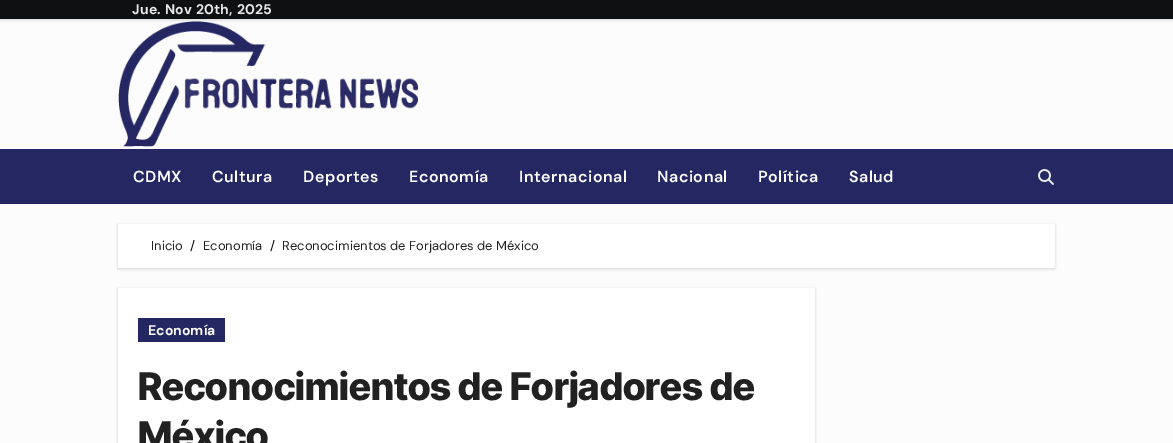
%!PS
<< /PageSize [1173 443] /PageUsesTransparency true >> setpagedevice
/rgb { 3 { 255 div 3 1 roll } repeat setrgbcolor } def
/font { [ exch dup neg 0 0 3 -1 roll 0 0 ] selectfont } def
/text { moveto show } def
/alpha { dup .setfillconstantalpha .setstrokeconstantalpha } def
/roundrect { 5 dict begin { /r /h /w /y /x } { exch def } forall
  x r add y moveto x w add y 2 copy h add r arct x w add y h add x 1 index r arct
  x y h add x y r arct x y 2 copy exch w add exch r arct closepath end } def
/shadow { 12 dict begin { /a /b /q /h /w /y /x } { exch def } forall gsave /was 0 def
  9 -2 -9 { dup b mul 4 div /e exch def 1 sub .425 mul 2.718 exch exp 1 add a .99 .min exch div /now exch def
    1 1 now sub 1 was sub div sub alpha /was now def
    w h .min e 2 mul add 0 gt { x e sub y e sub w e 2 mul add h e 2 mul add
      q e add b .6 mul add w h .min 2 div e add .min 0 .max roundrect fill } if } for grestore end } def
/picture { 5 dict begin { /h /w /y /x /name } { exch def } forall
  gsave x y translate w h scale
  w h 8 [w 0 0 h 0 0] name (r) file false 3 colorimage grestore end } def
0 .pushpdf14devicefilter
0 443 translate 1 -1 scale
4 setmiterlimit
252 252 252 rgb
0 0 1173 443 rectfill
(img_01.rgb) 118 21 300 126 picture
0 0 0 rgb
0 1 1173 19 0 1.5 0.15 shadow
15 16 18 rgb
0 0 1173 19 rectfill
36 39 98 rgb
0 149 1173 55 rectfill
(img_02.rgb) 1038 169 16 16 picture
0 0 0 rgb
118 225 937 44 0 1.5 0.15 shadow
255 255 255 rgb
118 224 937 44 rectfill
0 0 0 rgb
118 289 697 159 0 1.5 0.15 shadow
255 255 255 rgb
118 288 697 155 rectfill
36 39 98 rgb
138 318 87 24 rectfill
/DMSans-Bold 14 font
232 232 232 rgb
132 14 moveto 0.25 0 (Jue. Nov 20th, 2025) ashow
/DMSans-SemiBold 16 font
255 255 255 rgb
133 182 moveto 0.5 0 (CDMX) ashow
212 182 moveto 0.5 0 (Cultura) ashow
303 182 moveto 0.5 0 (Deportes) ashow
409 182 moveto 0.5 0 (Economía) ashow
519 182 moveto 0.5 0 (Internacional) ashow
657 182 moveto 0.5 0 (Nacional) ashow
758 182 moveto 0.5 0 (Política) ashow
849 182 moveto 0.5 0 (Salud) ashow
/DMSans-Regular 13 font
33 33 33 rgb
(Inicio) 151 250 text
0 0 0 rgb
(/) 190 250 text
33 33 33 rgb
(Economía) 203 250 text
0 0 0 rgb
(/) 270 250 text
33 33 33 rgb
(Reconocimientos de Forjadores de México) 282 250 text
/DMSans-Bold 14 font
255 255 255 rgb
(Economía) 148 335 text
/InterTight-ExtraBold 38 font
33 33 33 rgb
(Reconocimientos de Forjadores de) 138 400 text
(México) 138 449 text
.poppdf14devicefilter showpage
